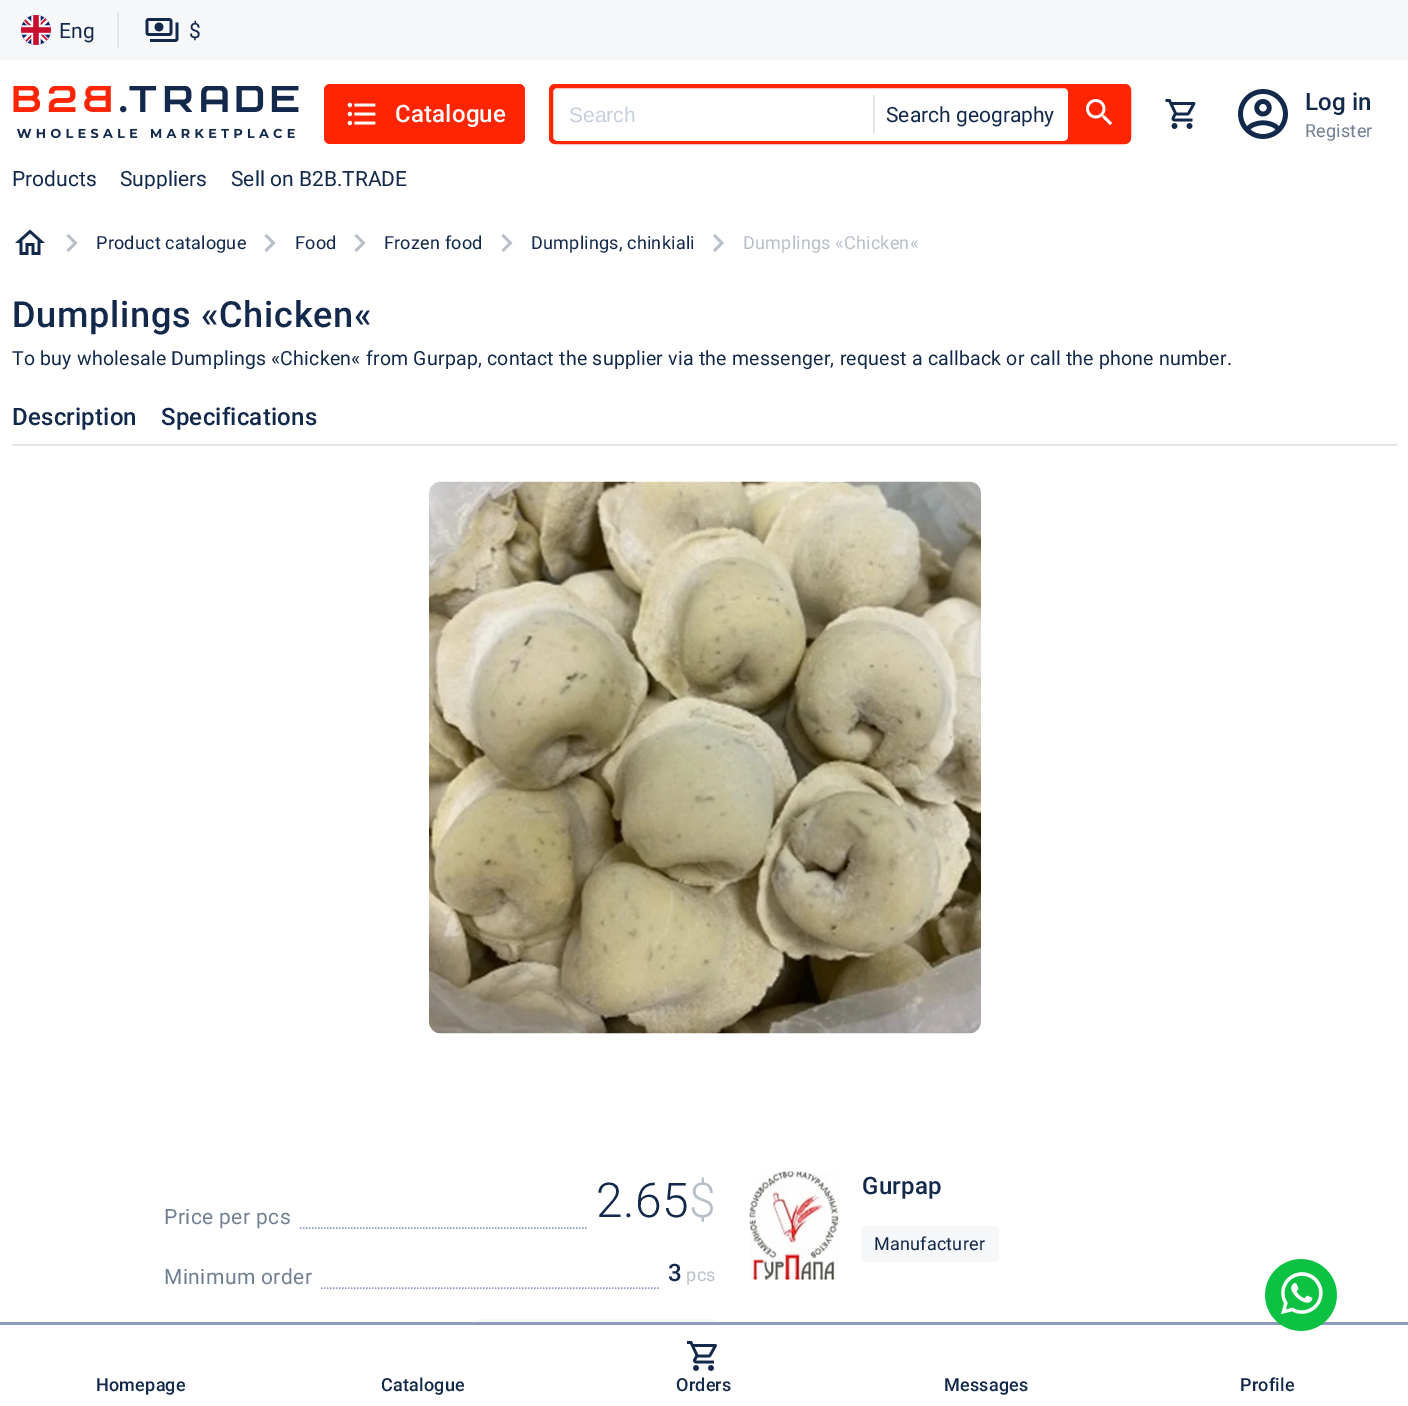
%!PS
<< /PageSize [1408 1406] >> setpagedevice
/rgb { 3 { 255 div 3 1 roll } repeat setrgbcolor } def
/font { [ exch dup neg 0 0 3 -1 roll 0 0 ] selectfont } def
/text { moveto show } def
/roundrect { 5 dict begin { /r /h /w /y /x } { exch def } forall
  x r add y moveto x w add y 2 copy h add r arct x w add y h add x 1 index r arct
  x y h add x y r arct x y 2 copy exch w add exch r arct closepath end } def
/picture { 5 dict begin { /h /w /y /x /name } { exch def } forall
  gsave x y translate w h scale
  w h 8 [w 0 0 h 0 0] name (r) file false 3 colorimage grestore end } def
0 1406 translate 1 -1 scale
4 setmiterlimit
255 255 255 rgb
0 0 1408 1406 rectfill
246 247 248 rgb
0 0 1408 60 rectfill
(img_01.rgb) 21 15 30 30 picture
226 229 233 rgb
117 12 2 36 rectfill
(img_02.rgb) 145 18 34 24 picture
(img_03.rgb) 13 86 286 52 picture
255 36 2 rgb
324 84 201 60 6 roundrect fill
(img_04.rgb) 347 102 29 24 picture
550 85 580 58 5 roundrect gsave fill grestore
2 setlinewidth
stroke
255 255 255 rgb
552 87 517 55 5 roundrect gsave fill grestore
255 36 2 rgb
stroke
226 229 233 rgb
873 95 2 39 rectfill
(img_05.rgb) 1086 99 27 27 picture
(img_06.rgb) 1165 99 31 30 picture
(img_07.rgb) 1238 89 50 50 picture
(img_08.rgb) 15 229 30 26 picture
185 191 201 rgb
66.5 250 moveto 7 -7 rlineto -7 -7 rlineto 2 -2 rlineto 9 9 rlineto -9 9 rlineto closepath fill
264.5 250 moveto 7 -7 rlineto -7 -7 rlineto 2 -2 rlineto 9 9 rlineto -9 9 rlineto closepath fill
354.5 250 moveto 7 -7 rlineto -7 -7 rlineto 2 -2 rlineto 9 9 rlineto -9 9 rlineto closepath fill
501.5 250 moveto 7 -7 rlineto -7 -7 rlineto 2 -2 rlineto 9 9 rlineto -9 9 rlineto closepath fill
713 250 moveto 7 -7 rlineto -7 -7 rlineto 2 -2 rlineto 9 9 rlineto -9 9 rlineto closepath fill
226 229 233 rgb
12 444 1385 2 rectfill
(img_09.rgb) 429 481 552 553 picture
141 156 189 rgb
1.5 setlinewidth
[1.5 1.5] 0 setdash
300 1228 moveto 288 0 rlineto stroke
321 1288 moveto 337.5 0 rlineto stroke
246 247 248 rgb
477 1319 240 60 6 roundrect fill
(img_10.rgb) 749 1171 89 109 picture
861 1226 138 36 6 roundrect fill
141 156 189 rgb
0 1322 1408 3 rectfill
(img_11.rgb) 1265 1259 72 72 picture
255 255 255 rgb
477 1325 240 54 rectfill
(img_12.rgb) 687 1341 30 30 picture
/Roboto-Regular 21 font
19 41 75 rgb
59 38 moveto 0.4 0 (Eng) ashow
189 38 moveto 0.75 0 ($) ashow
/Roboto-Medium 24 font
255 255 255 rgb
395 122 moveto 0.22 0 (Catalogue) ashow
/LiberationSans-Regular 21 font
198 206 222 rgb
(Search) 569 122 text
/Roboto-Regular 21 font
19 41 75 rgb
(Search geography) 886 122 text
/Roboto-Medium 24 font
1305 110 moveto 0.22 0 (Log in) ashow
/Roboto-Regular 18 font
113 127 147 rgb
1305 137 moveto 0.22 0 (Register) ashow
/Roboto-Regular 21 font
19 41 75 rgb
(Products) 12 186 text
gsave
12 168 1385 21 rectclip
(Suppliers) 120 186 text
grestore
(Sell on B2B.TRADE) 231 186 text
/Roboto-Regular 18 font
96 249 moveto 0.22 0 (Product catalogue) ashow
295 249 moveto 0.22 0 (Food) ashow
384 249 moveto 0.22 0 (Frozen food) ashow
531 249 moveto 0.22 0 (Dumplings, chinkiali) ashow
185 191 201 rgb
743 249 moveto 0.22 0 (Dumplings «Chicken«) ashow
/Roboto-Medium 36 font
19 41 75 rgb
12 327 moveto 0.75 0 (Dumplings «Chicken«) ashow
/Roboto-Regular 19.5 font
12 365 moveto 0.22 0 (To buy wholesale Dumplings «Chicken« from Gurpap, contact the supplier via the messenger, request a callback or call the phone number.) ashow
/Roboto-Medium 24 font
12 425 moveto 0.22 0 (Description) ashow
161 425 moveto 0.22 0 (Specifications) ashow
/Roboto-Regular 21 font
113 127 147 rgb
164 1224 moveto 0.4 0 (Price per pcs) ashow
/Roboto-Light 48 font
19 41 75 rgb
596 1217 moveto 0.4 0 (2.65) ashow
185 191 201 rgb
689 1217 moveto 0.4 0 ($) ashow
/Roboto-Regular 21 font
113 127 147 rgb
164 1284 moveto 0.4 0 (Minimum order) ashow
/Roboto-Medium 24 font
19 41 75 rgb
668 1281 moveto 0.22 0 (3) ashow
/Roboto-Regular 18 font
185 191 201 rgb
686 1281 moveto 0.4 0 (pcs) ashow
/Roboto-Medium 24 font
19 41 75 rgb
862 1194 moveto 0.22 0 (Gurpap) ashow
/Roboto-Regular 18 font
874 1250 moveto 0.22 0 (Manufacturer) ashow
/Roboto-Medium 18 font
96 1391 moveto 0.22 0 (Homepage) ashow
381 1391 moveto 0.22 0 (Catalogue) ashow
676 1391 moveto 0.22 0 (Orders) ashow
944 1391 moveto 0.22 0 (Messages) ashow
1240 1391 moveto 0.22 0 (Profile) ashow
showpage
